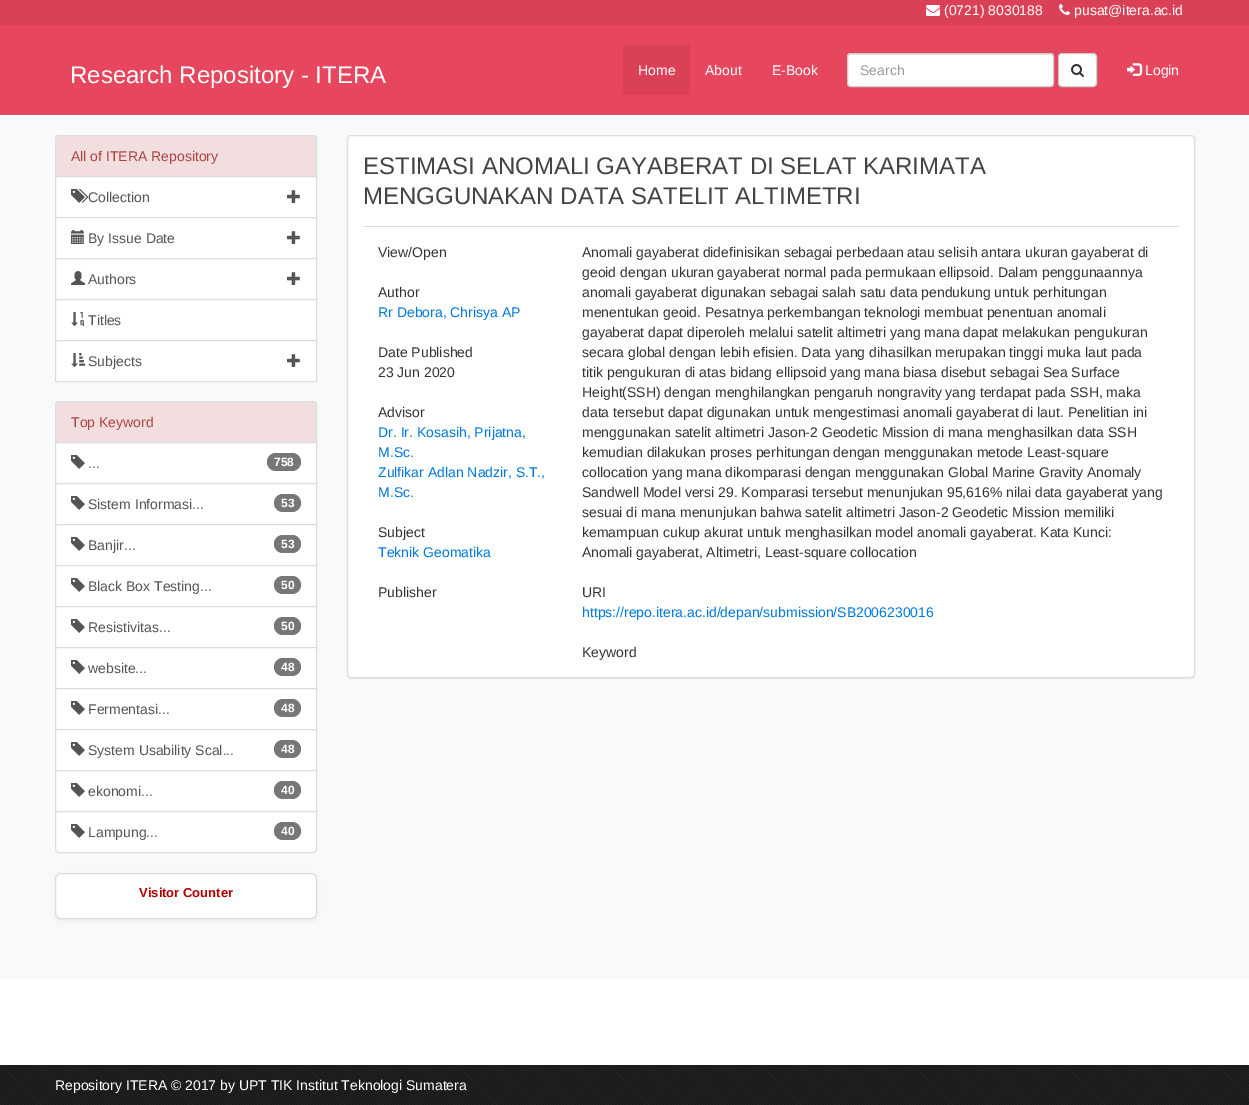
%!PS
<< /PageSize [1249 1105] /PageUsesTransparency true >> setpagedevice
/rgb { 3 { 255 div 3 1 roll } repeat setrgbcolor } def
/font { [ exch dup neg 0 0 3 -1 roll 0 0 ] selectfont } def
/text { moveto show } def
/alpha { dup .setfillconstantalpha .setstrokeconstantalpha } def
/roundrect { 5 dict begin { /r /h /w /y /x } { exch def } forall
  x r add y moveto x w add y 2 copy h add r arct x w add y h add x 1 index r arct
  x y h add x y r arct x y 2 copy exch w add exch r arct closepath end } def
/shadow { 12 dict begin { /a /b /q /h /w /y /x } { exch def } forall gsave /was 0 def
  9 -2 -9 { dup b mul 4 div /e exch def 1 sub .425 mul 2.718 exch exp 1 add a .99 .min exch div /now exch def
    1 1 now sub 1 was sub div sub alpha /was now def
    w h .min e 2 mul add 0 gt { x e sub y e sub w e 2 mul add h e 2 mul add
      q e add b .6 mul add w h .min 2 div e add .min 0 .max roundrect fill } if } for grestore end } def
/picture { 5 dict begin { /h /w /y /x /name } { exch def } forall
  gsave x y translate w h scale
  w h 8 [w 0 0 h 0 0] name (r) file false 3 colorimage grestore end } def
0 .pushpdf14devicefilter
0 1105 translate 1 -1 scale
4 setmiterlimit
255 255 255 rgb
0 0 1249 1105 rectfill
248 249 250 rgb
0 115 1249 864 rectfill
219 65 86 rgb
0 0 1249 25 rectfill
(img_01.rgb) 926 5 14 11 picture
(img_02.rgb) 1059 4 11 11 picture
231 71 94 rgb
0 25 1249 90 rectfill
219 65 86 rgb
623 45 67 50 rectfill
255 255 255 rgb
847 53 207 34 4 roundrect fill
236 236 236 rgb
851 55 moveto 199 0 rlineto 2 0 3 1 3 3 rcurveto 0 -2 -1 -4 -3 -4 rcurveto -199 0 rlineto -2 0 -3 2 -3 4 rcurveto 0 -2 1 -3 3 -3 rcurveto closepath fill
204 204 204 rgb
847.5 53.5 206 33 3.5 roundrect stroke
255 255 255 rgb
1058.5 53.5 38 33 3.5 roundrect gsave fill grestore
204 204 204 rgb
stroke
(img_03.rgb) 1071 64 13 13 picture
(img_04.rgb) 1127 63 16 13 picture
242 222 222 rgb
59 135.5 moveto 254 0 rlineto 2 0 3.5 1.5 3.5 3.5 rcurveto 0 37.5 rlineto -261 0 rlineto 0 -37.5 rlineto 0 -2 1.5 -3.5 3.5 -3.5 rcurveto closepath gsave fill grestore
221 221 221 rgb
stroke
255 255 255 rgb
55.5 176.5 moveto 261 0 rlineto 0 41 rlineto -261 0 rlineto closepath gsave fill grestore
221 221 221 rgb
stroke
(img_05.rgb) 71 189 18 14 picture
(img_06.rgb) 287 190 13 13 picture
255 255 255 rgb
55.5 217.5 moveto 261 0 rlineto 0 41 rlineto -261 0 rlineto closepath gsave fill grestore
221 221 221 rgb
stroke
(img_07.rgb) 71 230 13 14 picture
(img_06.rgb) 287 231 13 13 picture
255 255 255 rgb
55.5 258.5 moveto 261 0 rlineto 0 41 rlineto -261 0 rlineto closepath gsave fill grestore
221 221 221 rgb
stroke
(img_08.rgb) 71 271 14 14 picture
(img_06.rgb) 287 272 13 13 picture
255 255 255 rgb
55.5 299.5 moveto 261 0 rlineto 0 41 rlineto -261 0 rlineto closepath gsave fill grestore
221 221 221 rgb
stroke
(img_09.rgb) 71 312 13 14 picture
255 255 255 rgb
55.5 340.5 moveto 261 0 rlineto 0 41 rlineto -261 0 rlineto closepath gsave fill grestore
221 221 221 rgb
stroke
(img_10.rgb) 71 353 15 14 picture
(img_06.rgb) 287 354 13 13 picture
242 222 222 rgb
59 401.5 moveto 254 0 rlineto 2 0 3.5 1.5 3.5 3.5 rcurveto 0 37.5 rlineto -261 0 rlineto 0 -37.5 rlineto 0 -2 1.5 -3.5 3.5 -3.5 rcurveto closepath gsave fill grestore
221 221 221 rgb
stroke
255 255 255 rgb
55.5 442.5 moveto 261 0 rlineto 0 41 rlineto -261 0 rlineto closepath gsave fill grestore
221 221 221 rgb
stroke
(img_11.rgb) 71 455 14 14 picture
119 119 119 rgb
267 453 34 18 9 roundrect fill
255 255 255 rgb
55.5 483.5 moveto 261 0 rlineto 0 41 rlineto -261 0 rlineto closepath gsave fill grestore
221 221 221 rgb
stroke
(img_11.rgb) 71 496 14 14 picture
119 119 119 rgb
274 494 27 18 9 roundrect fill
255 255 255 rgb
55.5 524.5 moveto 261 0 rlineto 0 41 rlineto -261 0 rlineto closepath gsave fill grestore
221 221 221 rgb
stroke
(img_11.rgb) 71 537 14 14 picture
119 119 119 rgb
274 535 27 18 9 roundrect fill
255 255 255 rgb
55.5 565.5 moveto 261 0 rlineto 0 41 rlineto -261 0 rlineto closepath gsave fill grestore
221 221 221 rgb
stroke
(img_11.rgb) 71 578 14 14 picture
119 119 119 rgb
274 576 27 18 9 roundrect fill
255 255 255 rgb
55.5 606.5 moveto 261 0 rlineto 0 41 rlineto -261 0 rlineto closepath gsave fill grestore
221 221 221 rgb
stroke
(img_11.rgb) 71 619 14 14 picture
119 119 119 rgb
274 617 27 18 9 roundrect fill
255 255 255 rgb
55.5 647.5 moveto 261 0 rlineto 0 41 rlineto -261 0 rlineto closepath gsave fill grestore
221 221 221 rgb
stroke
(img_11.rgb) 71 660 14 14 picture
119 119 119 rgb
274 658 27 18 9 roundrect fill
255 255 255 rgb
55.5 688.5 moveto 261 0 rlineto 0 41 rlineto -261 0 rlineto closepath gsave fill grestore
221 221 221 rgb
stroke
(img_11.rgb) 71 701 14 14 picture
119 119 119 rgb
274 699 27 18 9 roundrect fill
255 255 255 rgb
55.5 729.5 moveto 261 0 rlineto 0 41 rlineto -261 0 rlineto closepath gsave fill grestore
221 221 221 rgb
stroke
(img_11.rgb) 71 742 14 14 picture
119 119 119 rgb
274 740 27 18 9 roundrect fill
255 255 255 rgb
55.5 770.5 moveto 261 0 rlineto 0 41 rlineto -261 0 rlineto closepath gsave fill grestore
221 221 221 rgb
stroke
(img_11.rgb) 71 783 14 14 picture
119 119 119 rgb
274 781 27 18 9 roundrect fill
255 255 255 rgb
55.5 811.5 moveto 261 0 rlineto 0 37.5 rlineto 0 2 -1.5 3.5 -3.5 3.5 rcurveto -254 0 rlineto -2 0 -3.5 -1.5 -3.5 -3.5 rcurveto closepath gsave fill grestore
221 221 221 rgb
stroke
(img_11.rgb) 71 824 14 14 picture
119 119 119 rgb
274 822 27 18 9 roundrect fill
0 0 0 rgb
55 875 262 46 6 2.5 0.05 shadow
255 255 255 rgb
55.5 873.5 261 45 5.5 roundrect gsave fill grestore
221 221 221 rgb
stroke
0 0 0 rgb
347 136 848 543 4 0.5 0.05 shadow
255 255 255 rgb
347.5 135.5 847 542 3.5 roundrect gsave fill grestore
221 221 221 rgb
stroke
363 226 816 1 rectfill
(img_12.rgb) 0 1065 1249 40 picture
/LiberationSans-Regular 14 font
255 255 255 rgb
(\(0721\) 8030188) 944 15 text
(pusat@itera.ac.id) 1074 15 text
/LiberationSans-Regular 24 font
(Research Repository - ITERA) 70 83 text
/LiberationSans-Regular 14 font
(Home) 638 75 text
(About) 705 75 text
(E-Book) 772 75 text
153 153 153 rgb
(Search) 860 75 text
255 255 255 rgb
(Login) 1145 75 text
169 68 66 rgb
(All of ITERA Repository) 71 161 text
85 85 85 rgb
(Collection) 88 202 text
(By Issue Date) 88 243 text
(Authors) 88 284 text
(Titles) 88 325 text
(Subjects) 88 366 text
169 68 66 rgb
(Top Keyword) 71 427 text
85 85 85 rgb
(...) 88 468 text
/LiberationSans-Bold 12 font
255 255 255 rgb
(758) 274 466 text
/LiberationSans-Regular 14 font
85 85 85 rgb
(Sistem Informasi...) 88 509 text
/LiberationSans-Bold 12 font
255 255 255 rgb
(53) 281 507 text
/LiberationSans-Regular 14 font
85 85 85 rgb
(Banjir...) 88 550 text
/LiberationSans-Bold 12 font
255 255 255 rgb
(53) 281 548 text
/LiberationSans-Regular 14 font
85 85 85 rgb
(Black Box Testing...) 88 591 text
/LiberationSans-Bold 12 font
255 255 255 rgb
(50) 281 589 text
/LiberationSans-Regular 14 font
85 85 85 rgb
(Resistivitas...) 88 632 text
/LiberationSans-Bold 12 font
255 255 255 rgb
(50) 281 630 text
/LiberationSans-Regular 14 font
85 85 85 rgb
(website...) 88 673 text
/LiberationSans-Bold 12 font
255 255 255 rgb
(48) 281 671 text
/LiberationSans-Regular 14 font
85 85 85 rgb
(Fermentasi...) 88 714 text
/LiberationSans-Bold 12 font
255 255 255 rgb
(48) 281 712 text
/LiberationSans-Regular 14 font
85 85 85 rgb
(System Usability Scal...) 88 755 text
/LiberationSans-Bold 12 font
255 255 255 rgb
(48) 281 753 text
/LiberationSans-Regular 14 font
85 85 85 rgb
(ekonomi...) 88 796 text
/LiberationSans-Bold 12 font
255 255 255 rgb
(40) 281 794 text
/LiberationSans-Regular 14 font
85 85 85 rgb
(Lampung...) 88 837 text
/LiberationSans-Bold 12 font
255 255 255 rgb
(40) 281 835 text
/LiberationSans-Bold 13 font
179 0 0 rgb
(Visitor Counter) 139 897 text
/LiberationSans-Regular 24 font
68 68 68 rgb
(ESTIMASI ANOMALI GAYABERAT DI SELAT KARIMATA) 363 174 text
(MENGGUNAKAN DATA SATELIT ALTIMETRI) 363 204 text
/LiberationSans-Regular 14 font
51 51 51 rgb
(View/Open) 378 257 text
(Author) 378 297 text
0 119 221 rgb
(Rr Debora, Chrisya AP) 378 317 text
51 51 51 rgb
(Date Published) 378 357 text
(23 Jun 2020) 378 377 text
(Advisor) 378 417 text
0 119 221 rgb
(Dr. Ir. Kosasih, Prijatna,) 378 437 text
(M.Sc.) 378 457 text
(Zulfikar Adlan Nadzir, S.T.,) 378 477 text
(M.Sc.) 378 497 text
51 51 51 rgb
(Subject) 378 537 text
0 119 221 rgb
(Teknik Geomatika) 378 557 text
51 51 51 rgb
(Publisher) 378 597 text
(Anomali gayaberat didefinisikan sebagai perbedaan atau selisih antara ukuran gayaberat di) 582 257 text
(geoid dengan ukuran gayaberat normal pada permukaan ellipsoid. Dalam penggunaannya) 582 277 text
(anomali gayaberat digunakan sebagai salah satu data pendukung untuk perhitungan) 582 297 text
(menentukan geoid. Pesatnya perkembangan teknologi membuat penentuan anomali) 582 317 text
(gayaberat dapat diperoleh melalui satelit altimetri yang mana dapat melakukan pengukuran) 582 337 text
(secara global dengan lebih efisien. Data yang dihasilkan merupakan tinggi muka laut pada) 582 357 text
(titik pengukuran di atas bidang ellipsoid yang mana biasa disebut sebagai Sea Surface) 582 377 text
(Height\(SSH\) dengan menghilangkan pengaruh nongravity yang terdapat pada SSH, maka) 582 397 text
(data tersebut dapat digunakan untuk mengestimasi anomali gayaberat di laut. Penelitian ini) 582 417 text
(menggunakan satelit altimetri Jason-2 Geodetic Mission di mana menghasilkan data SSH) 582 437 text
(kemudian dilakukan proses perhitungan dengan menggunakan metode Least-square) 582 457 text
(collocation yang mana dikomparasi dengan menggunakan Global Marine Gravity Anomaly) 582 477 text
(Sandwell Model versi 29. Komparasi tersebut menunjukan 95,616% nilai data gayaberat yang) 582 497 text
(sesuai di mana menunjukan bahwa satelit altimetri Jason-2 Geodetic Mission memiliki) 582 517 text
(kemampuan cukup akurat untuk menghasilkan model anomali gayaberat. Kata Kunci:) 582 537 text
(Anomali gayaberat, Altimetri, Least-square collocation) 582 557 text
(URI) 582 597 text
0 119 221 rgb
(https://repo.itera.ac.id/depan/submission/SB2006230016) 582 617 text
51 51 51 rgb
(Keyword) 582 657 text
255 255 255 rgb
(Repository ITERA © 2017 by UPT TIK Institut Teknologi Sumatera) 55 1090 text
.poppdf14devicefilter showpage
